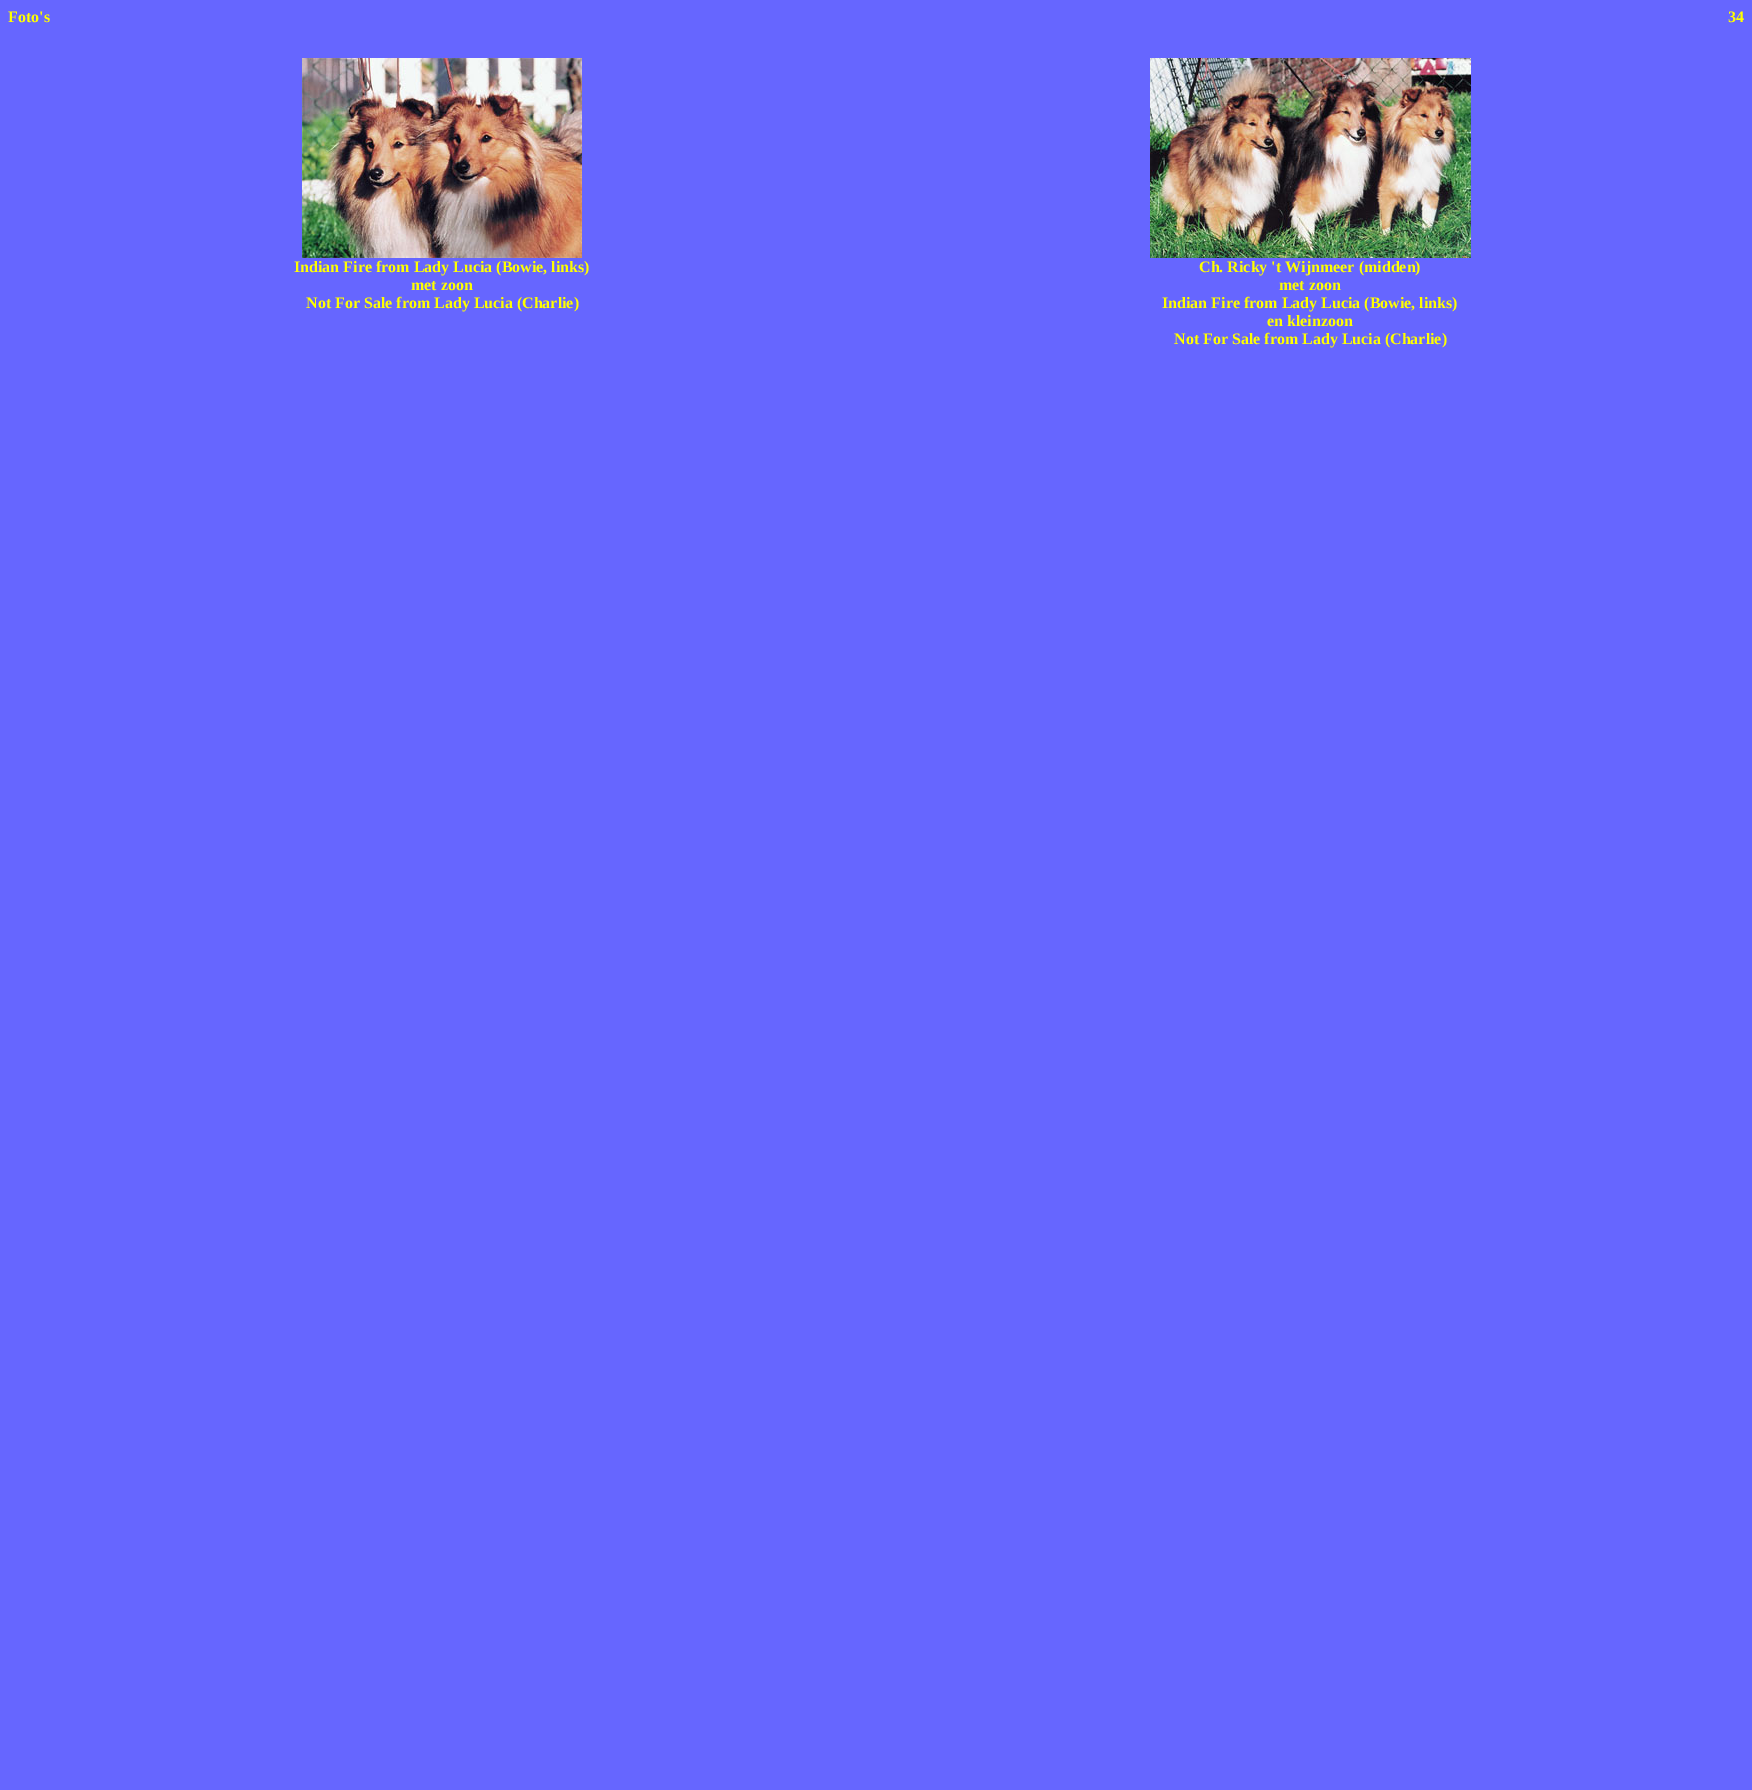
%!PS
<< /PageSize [1752 1790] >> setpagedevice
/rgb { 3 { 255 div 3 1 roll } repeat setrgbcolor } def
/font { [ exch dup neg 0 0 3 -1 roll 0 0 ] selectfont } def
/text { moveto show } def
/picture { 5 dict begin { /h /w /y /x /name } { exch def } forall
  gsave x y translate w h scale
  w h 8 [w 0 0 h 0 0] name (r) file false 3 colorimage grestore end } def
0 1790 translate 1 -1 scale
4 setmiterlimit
102 102 255 rgb
0 0 1752 1790 rectfill
(img_01.rgb) 302 58 280 200 picture
(img_02.rgb) 1150 58 321 200 picture
/LiberationSerif-Bold 16 font
255 255 0 rgb
(Foto's) 8 22 text
(34) 1728 22 text
(Indian Fire from Lady Lucia \(Bowie, links\)) 294 272 text
(met zoon) 411 290 text
(Not For Sale from Lady Lucia \(Charlie\)) 306 308 text
(Ch. Ricky 't Wijnmeer \(midden\)) 1199 272 text
(met zoon) 1279 290 text
(Indian Fire from Lady Lucia \(Bowie, links\)) 1162 308 text
(en kleinzoon) 1267 326 text
(Not For Sale from Lady Lucia \(Charlie\)) 1174 344 text
showpage
